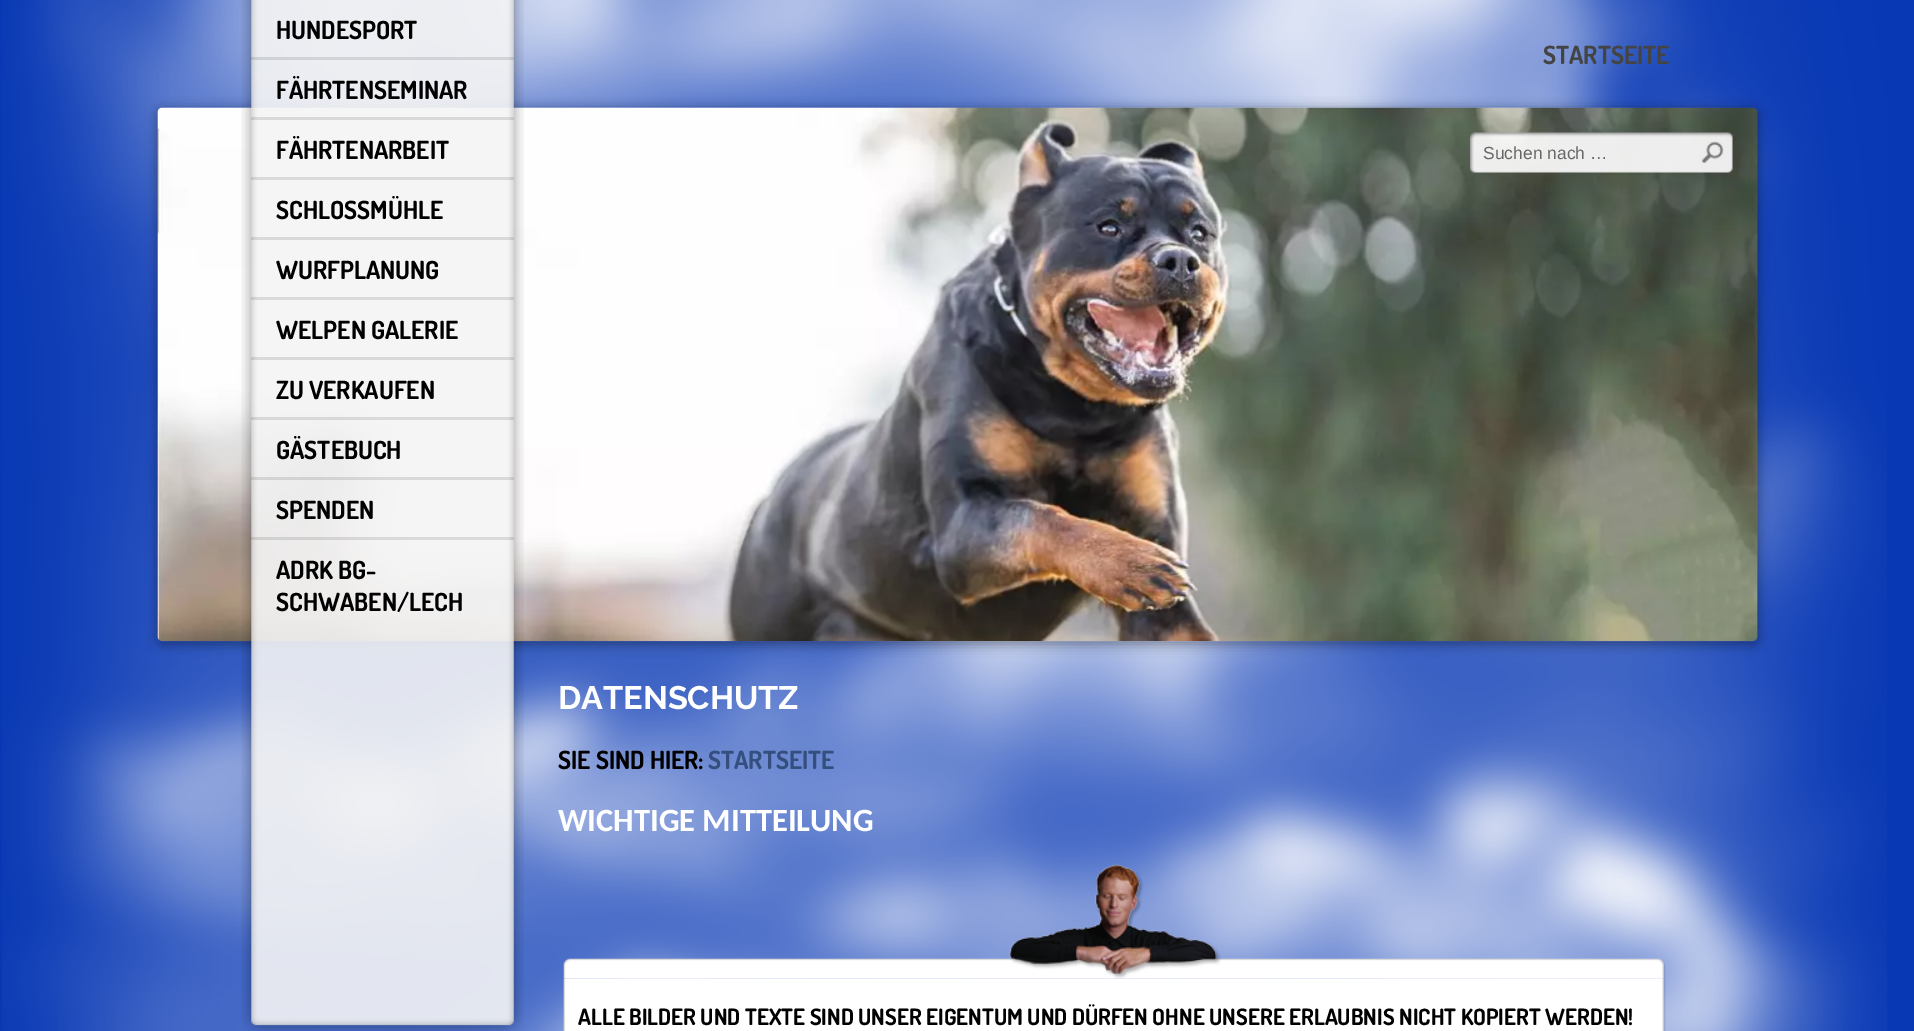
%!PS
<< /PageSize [1914 1031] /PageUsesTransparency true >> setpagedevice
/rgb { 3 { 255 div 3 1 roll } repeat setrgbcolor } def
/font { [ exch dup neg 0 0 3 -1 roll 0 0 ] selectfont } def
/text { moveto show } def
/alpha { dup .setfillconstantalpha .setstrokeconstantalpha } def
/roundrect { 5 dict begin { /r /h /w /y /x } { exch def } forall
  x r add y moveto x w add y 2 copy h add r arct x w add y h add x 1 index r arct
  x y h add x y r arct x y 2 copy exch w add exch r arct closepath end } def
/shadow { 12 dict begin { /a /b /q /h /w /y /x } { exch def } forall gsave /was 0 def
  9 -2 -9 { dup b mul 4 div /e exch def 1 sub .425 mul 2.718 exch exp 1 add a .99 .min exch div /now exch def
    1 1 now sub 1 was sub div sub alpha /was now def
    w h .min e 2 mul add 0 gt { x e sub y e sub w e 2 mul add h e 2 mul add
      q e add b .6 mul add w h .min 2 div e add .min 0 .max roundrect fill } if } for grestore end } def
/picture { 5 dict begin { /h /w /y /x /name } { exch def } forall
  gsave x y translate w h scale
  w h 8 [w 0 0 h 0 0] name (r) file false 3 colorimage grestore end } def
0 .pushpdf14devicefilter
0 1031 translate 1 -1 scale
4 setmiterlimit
8 56 180 rgb
0 0 1914 1031 rectfill
(img_01.rgb) 2 0 1885 1031 picture
0 0 0 rgb
158 110 1600 534 5 6 0.4 shadow
(img_04.rgb) 157 107 1601 535 picture
(img_02.rgb) 241 0 283 1000 picture
0.15 alpha
60 60 60 rgb
251 57 263 3 rectfill
251 117 263 3 rectfill
251 177 263 3 rectfill
251 237 263 3 rectfill
251 297 263 3 rectfill
251 357 263 3 rectfill
251 417 263 3 rectfill
251 477 263 3 rectfill
251 537 263 3 rectfill
1 alpha
(img_03.rgb) 241 1000 283 31 picture
(img_05.rgb) 1470 132 263 41 picture
(img_06.rgb) 1701 141 23 23 picture
(img_07.rgb) 563 863 1103 116 picture
(img_08.rgb) 563 978 1103 53 picture
/Dosis-Bold 25 font
0 0 0 rgb
(HUNDESPORT) 276 39 text
(FÄHRTENSEMINAR) 276 99 text
(FÄHRTENARBEIT) 276 159 text
(SCHLOSSMÜHLE) 276 219 text
(WURFPLANUNG) 276 279 text
(WELPEN GALERIE) 276 339 text
(ZU VERKAUFEN) 276 399 text
(GÄSTEBUCH) 276 459 text
(SPENDEN) 276 519 text
(ADRK BG-) 276 579 text
(SCHWABEN/LECH) 276 611 text
68 68 68 rgb
(STARTSEITE) 1543 64 text
/LiberationSans-Regular 17.5 font
102 102 102 rgb
(Suchen nach …) 1483 159 text
/Raleway-Bold 32.5 font
255 255 255 rgb
(DATENSCHUTZ) 558 709 text
/Dosis-Bold 25 font
0 0 0 rgb
(SIE SIND HIER:) 558 769 text
52 79 125 rgb
(STARTSEITE) 708 769 text
/Carlito-Bold 32.5 font
255 255 255 rgb
(WICHTIGE MITTEILUNG) 558 831 text
/Dosis-Bold 22.5 font
0 0 0 rgb
(ALLE BILDER UND TEXTE SIND UNSER EIGENTUM UND DÜRFEN OHNE UNSERE ERLAUBNIS NICHT KOPIERT WERDEN!) 578 1025 text
.poppdf14devicefilter showpage
